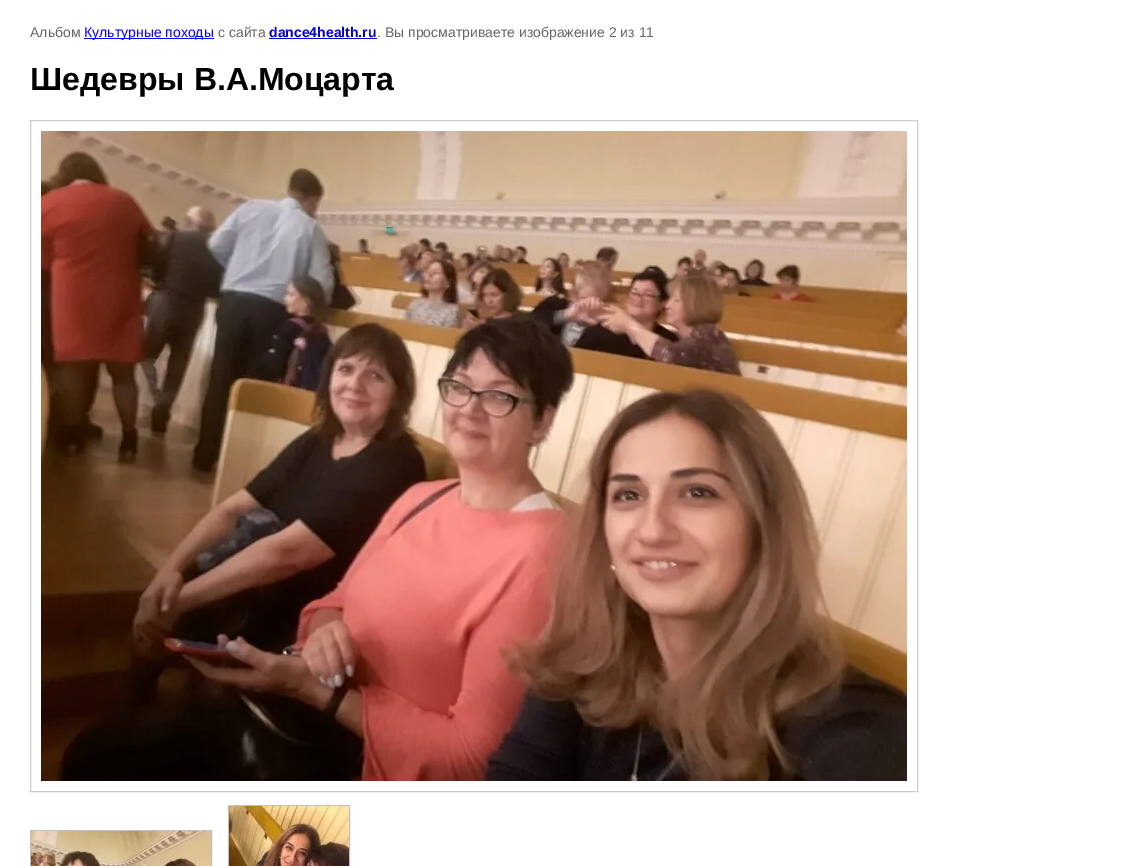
%!PS
<< /PageSize [1146 866] >> setpagedevice
/rgb { 3 { 255 div 3 1 roll } repeat setrgbcolor } def
/font { [ exch dup neg 0 0 3 -1 roll 0 0 ] selectfont } def
/text { moveto show } def
/picture { 5 dict begin { /h /w /y /x /name } { exch def } forall
  gsave x y translate w h scale
  w h 8 [w 0 0 h 0 0] name (r) file false 3 colorimage grestore end } def
0 866 translate 1 -1 scale
4 setmiterlimit
255 255 255 rgb
0 0 1146 866 rectfill
0 0 255 rgb
84 38 130 1 rectfill
0 0 204 rgb
269 38 108 1 rectfill
204 204 204 rgb
30.5 120.5 887 671 rectstroke
(img_01.rgb) 41 131 866 650 picture
192 192 192 rgb
30.5 830.5 181 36 rectstroke
(img_02.rgb) 31 831 180 35 picture
228.5 805.5 121 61 rectstroke
(img_03.rgb) 229 806 120 60 picture
/LiberationSans-Regular 14 font
102 102 102 rgb
(Альбом) 30 37 text
0 0 255 rgb
(Культурные походы) 84 37 text
102 102 102 rgb
(с сайта) 218 37 text
/LiberationSans-Bold 14 font
0 0 204 rgb
(dance4health.ru) 269 37 text
/LiberationSans-Regular 14 font
102 102 102 rgb
(. Вы просматриваете изображение 2 из 11) 377 37 text
/LiberationSans-Bold 32 font
0 0 0 rgb
(Шедевры В.А.Моцарта) 30 90 text
showpage
